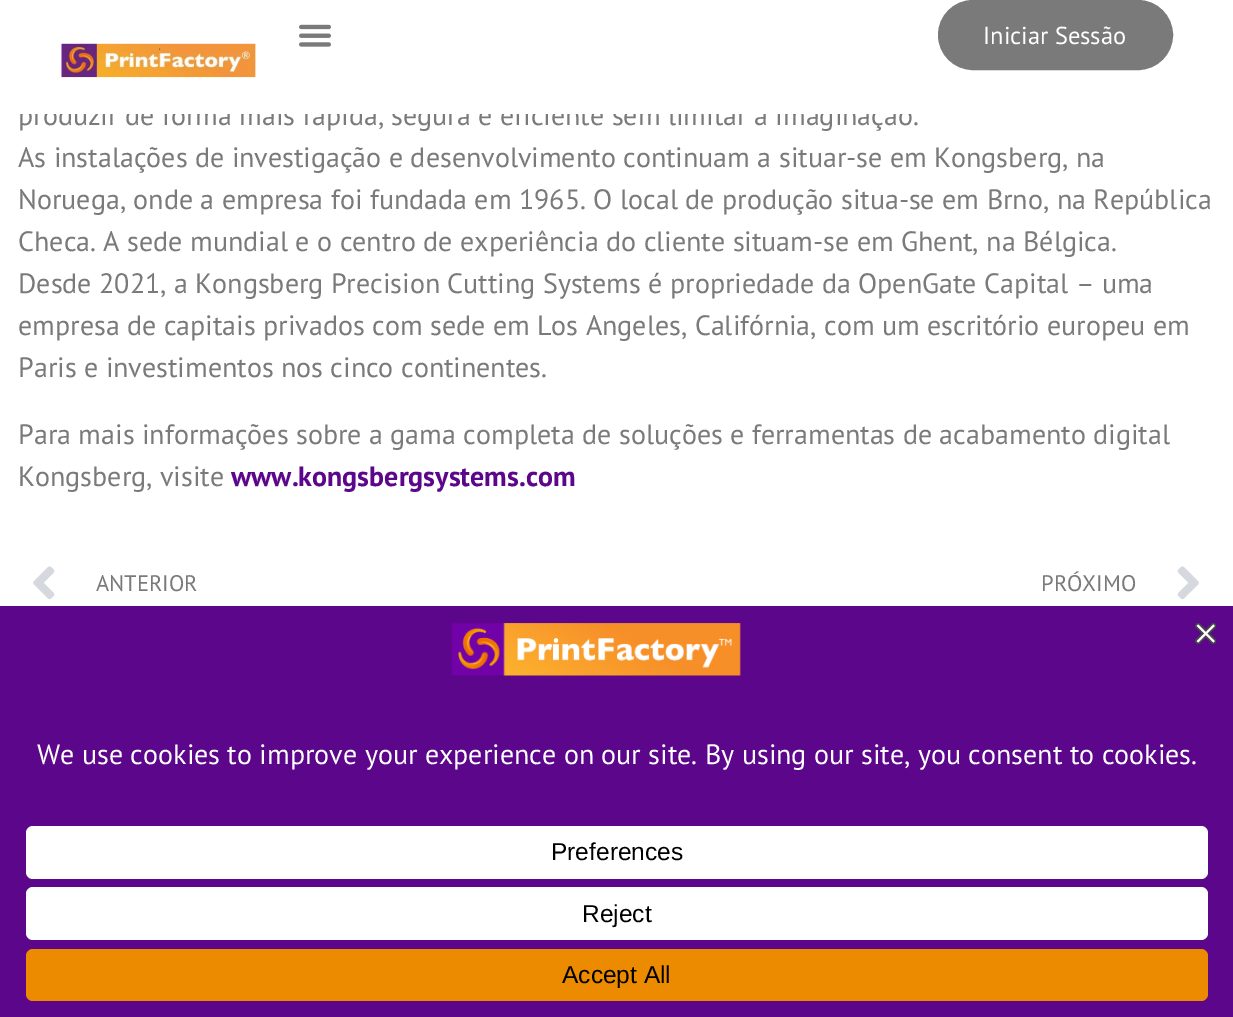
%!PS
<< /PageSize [1233 1017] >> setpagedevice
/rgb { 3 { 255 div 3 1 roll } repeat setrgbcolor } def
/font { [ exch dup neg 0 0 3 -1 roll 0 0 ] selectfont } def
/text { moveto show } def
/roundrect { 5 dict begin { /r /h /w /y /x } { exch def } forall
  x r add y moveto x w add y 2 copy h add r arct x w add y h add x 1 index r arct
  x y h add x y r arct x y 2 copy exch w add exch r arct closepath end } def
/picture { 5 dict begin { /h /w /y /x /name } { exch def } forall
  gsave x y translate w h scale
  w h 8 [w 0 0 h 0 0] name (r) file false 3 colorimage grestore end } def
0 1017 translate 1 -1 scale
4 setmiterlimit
255 255 255 rgb
0 0 1233 1017 rectfill
(img_01.rgb) 299 24 32 23 picture
122 122 122 rgb
939 1 233 68 34 roundrect gsave fill grestore
2 setlinewidth
stroke
(img_02.rgb) 61 43 195 35 picture
(img_03.rgb) 33 566 22 34 picture
(img_04.rgb) 1177 566 22 34 picture
92 6 140 rgb
0 606 1233 411 rectfill
(img_05.rgb) 451 623 290 53 picture
(img_06.rgb) 1195 623 21 21 picture
255 255 255 rgb
26 826 1182 53 7 roundrect fill
26 887 1182 53 7 roundrect fill
237 139 0 rgb
26 949 1182 52 7 roundrect fill
/PTSans-Regular 24.5 font
255 255 255 rgb
(Iniciar Sessão) 983 44 text
/PTSans-Regular 28 font
122 122 122 rgb
(produzir de forma mais rápida, segura e eficiente sem limitar a imaginação.) 18 125 text
255 255 255 rgb
19 104 892 10 rectfill
122 122 122 rgb
(As instalações de investigação e desenvolvimento continuam a situar-se em Kongsberg, na) 18 167 text
(Noruega, onde a empresa foi fundada em 1965. O local de produção situa-se em Brno, na República) 18 209 text
(Checa. A sede mundial e o centro de experiência do cliente situam-se em Ghent, na Bélgica.) 18 251 text
(Desde 2021, a Kongsberg Precision Cutting Systems é propriedade da OpenGate Capital – uma) 18 293 text
(empresa de capitais privados com sede em Los Angeles, Califórnia, com um escritório europeu em) 18 335 text
(Paris e investimentos nos cinco continentes.) 18 377 text
(Para mais informações sobre a gama completa de soluções e ferramentas de acabamento digital) 18 444 text
(Kongsberg, visite) 18 486 text
/PTSans-Bold 28 font
92 6 140 rgb
(www.kongsbergsystems.com) 231 486 text
/PTSans-Regular 22.5 font
122 122 122 rgb
(ANTERIOR) 96 591 text
(PRÓXIMO) 1041 591 text
/PTSans-Regular 28 font
255 255 255 rgb
(We use cookies to improve your experience on our site. By using our site, you consent to cookies.) 37 764 text
/LiberationSans-Regular 24.5 font
0 0 0 rgb
(Preferences) 551 860 text
(Reject) 582 922 text
(Accept All) 562 983 text
showpage
